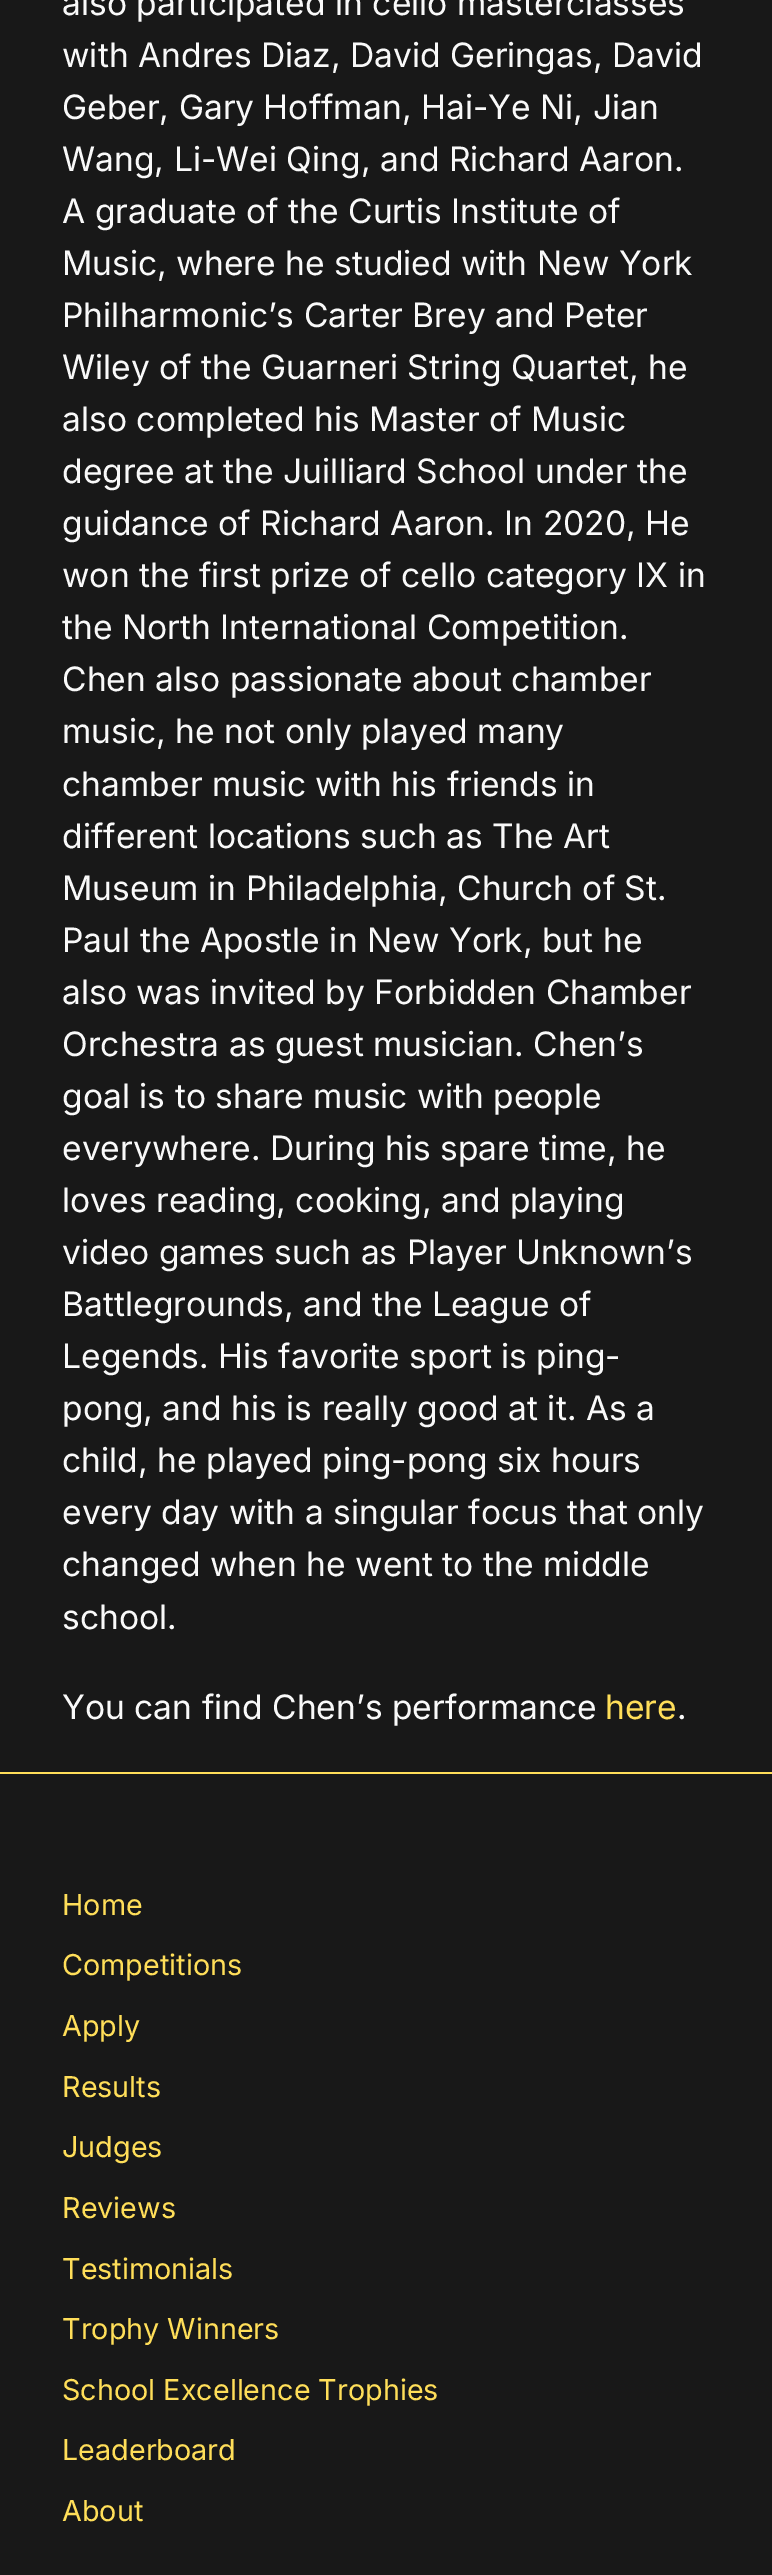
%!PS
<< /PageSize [772 2575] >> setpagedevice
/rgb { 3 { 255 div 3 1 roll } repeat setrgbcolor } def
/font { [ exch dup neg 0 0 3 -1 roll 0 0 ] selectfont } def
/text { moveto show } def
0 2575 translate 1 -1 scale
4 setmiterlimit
24 24 24 rgb
0 0 772 2575 rectfill
255 222 89 rgb
0 1772 772 2 rectfill
/Inter-Regular 33.6 font
249 249 249 rgb
(also participated in cello masterclasses) 62 15 text
(with Andres Diaz, David Geringas, David) 62 67 text
(Geber, Gary Hoffman, Hai-Ye Ni, Jian) 62 119 text
(Wang, Li-Wei Qing, and Richard Aaron.) 62 171 text
(A graduate of the Curtis Institute of) 62 223 text
(Music, where he studied with New York) 62 275 text
(Philharmonic’s Carter Brey and Peter) 62 327 text
(Wiley of the Guarneri String Quartet, he) 62 379 text
(also completed his Master of Music) 62 431 text
(degree at the Juilliard School under the) 62 483 text
(guidance of Richard Aaron. In 2020, He) 62 535 text
(won the first prize of cello category IX in) 62 587 text
(the North International Competition.) 62 639 text
(Chen also passionate about chamber) 62 691 text
(music, he not only played many) 62 743 text
(chamber music with his friends in) 62 796 text
(different locations such as The Art) 62 848 text
(Museum in Philadelphia, Church of St.) 62 900 text
(Paul the Apostle in New York, but he) 62 952 text
(also was invited by Forbidden Chamber) 62 1004 text
(Orchestra as guest musician. Chen’s) 62 1056 text
(goal is to share music with people) 62 1108 text
(everywhere. During his spare time, he) 62 1160 text
(loves reading, cooking, and playing) 62 1212 text
(video games such as Player Unknown’s) 62 1264 text
(Battlegrounds, and the League of) 62 1316 text
(Legends. His favorite sport is ping-) 62 1368 text
(pong, and his is really good at it. As a) 62 1420 text
(child, he played ping-pong six hours) 62 1472 text
(every day with a singular focus that only) 62 1524 text
(changed when he went to the middle) 62 1576 text
(school.) 62 1629 text
(You can find Chen’s performance) 62 1719 text
255 222 89 rgb
(here) 605 1719 text
249 249 249 rgb
(.) 677 1719 text
/Inter-Regular 28.75 font
255 222 89 rgb
(Home) 62 1915 text
(Competitions) 62 1975 text
(Apply) 62 2036 text
(Results) 62 2097 text
(Judges) 62 2157 text
(Reviews) 62 2218 text
(Testimonials) 62 2279 text
(Trophy Winners) 62 2339 text
(School Excellence Trophies) 62 2400 text
(Leaderboard) 62 2460 text
(About) 62 2521 text
showpage
